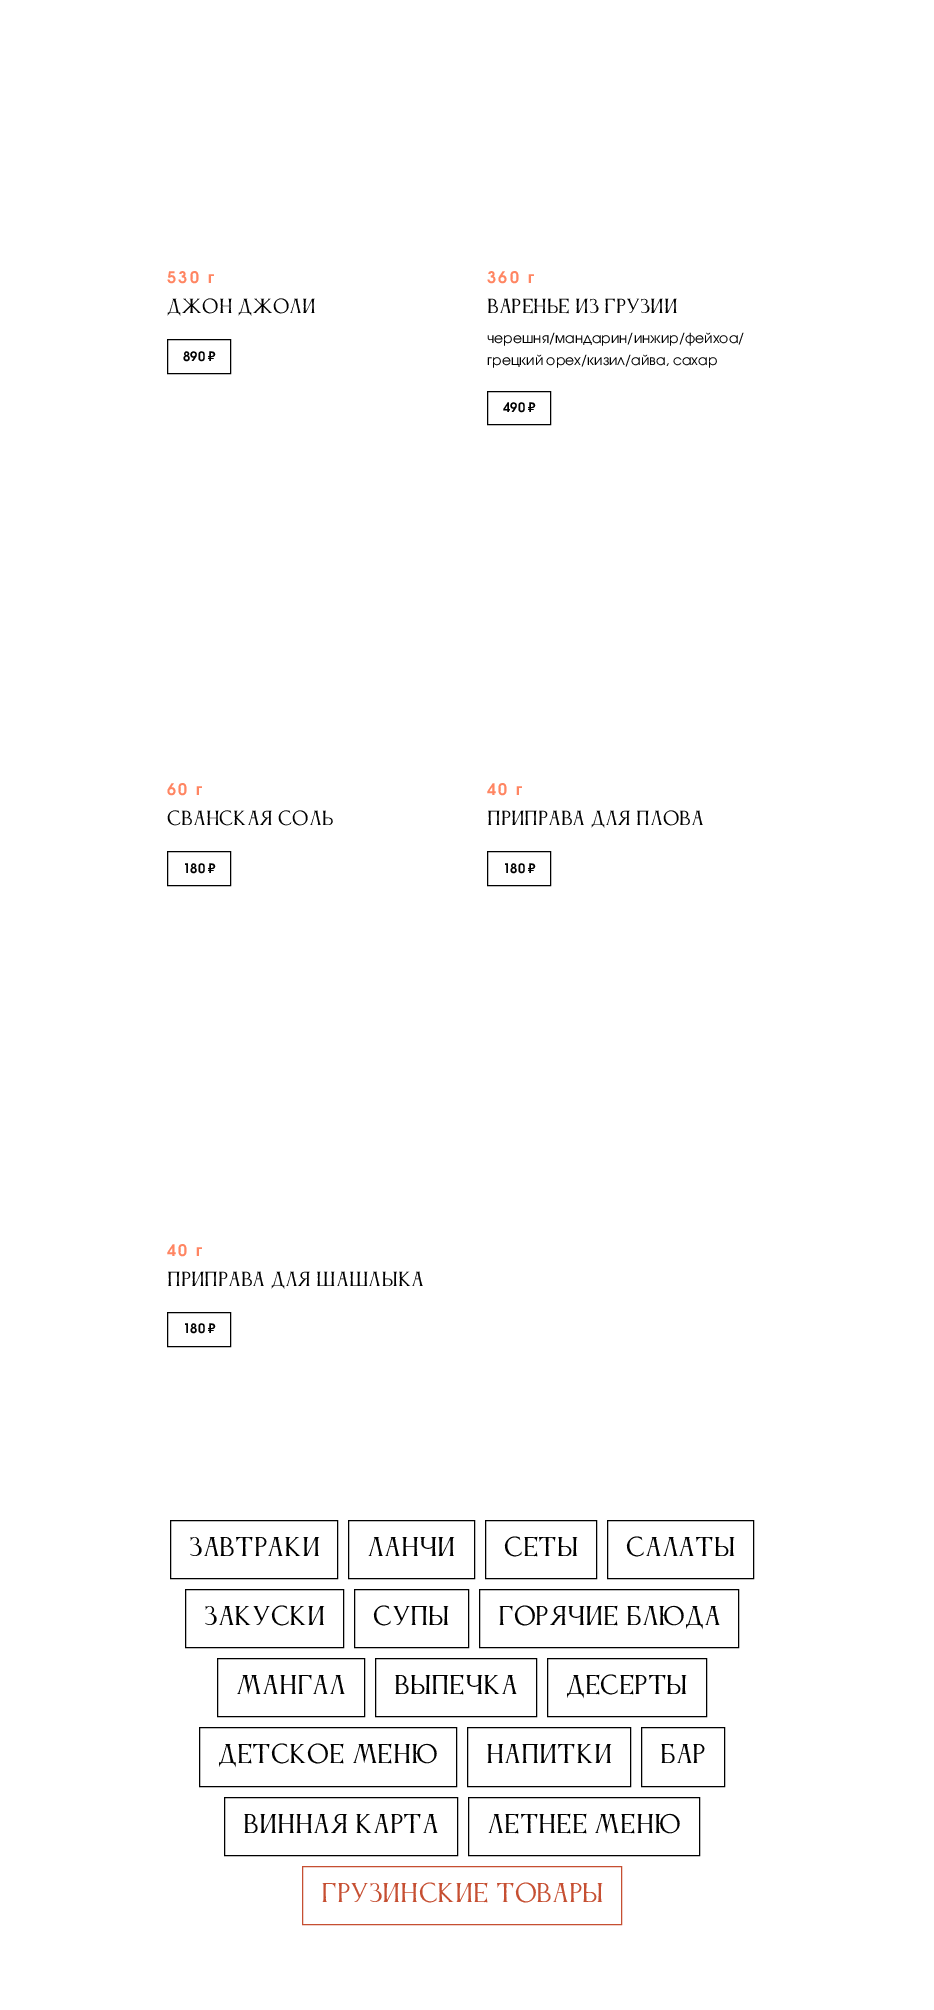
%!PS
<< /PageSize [934 2010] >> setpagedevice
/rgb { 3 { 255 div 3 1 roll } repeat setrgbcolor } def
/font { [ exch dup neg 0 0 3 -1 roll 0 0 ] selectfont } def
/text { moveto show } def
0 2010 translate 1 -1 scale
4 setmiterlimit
255 255 255 rgb
0 0 934 2010 rectfill
0 0 0 rgb
167.5 339.5 63 34 rectstroke
487.5 391.5 63 33 rectstroke
167.5 851.5 63 34 rectstroke
487.5 851.5 63 34 rectstroke
167.5 1312.5 63 34 rectstroke
170.5 1520.5 167 58 rectstroke
348.5 1520.5 126 58 rectstroke
485.5 1520.5 111 58 rectstroke
607.5 1520.5 146 58 rectstroke
185.5 1589.5 158 58 rectstroke
354.5 1589.5 114 58 rectstroke
479.5 1589.5 259 58 rectstroke
217.5 1658.5 147 58 rectstroke
375.5 1658.5 161 58 rectstroke
547.5 1658.5 159 58 rectstroke
199.5 1727.5 257 59 rectstroke
467.5 1727.5 163 59 rectstroke
641.5 1727.5 83 59 rectstroke
224.5 1797.5 233 58 rectstroke
468.5 1797.5 231 58 rectstroke
198 79 50 rgb
302.5 1866.5 319 58 rectstroke
/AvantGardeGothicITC-SemiBold 16 font
255 133 98 rgb
167 283 moveto 2.5 0 (530 г) ashow
/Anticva-Regular 18 font
0 0 0 rgb
(ДЖОН ДЖОЛИ) 167 313 text
/AvantGardeGothicITC-SemiBold 13 font
(890 ₽) 183 361 text
/AvantGardeGothicITC-SemiBold 16 font
255 133 98 rgb
487 283 moveto 2.5 0 (360 г) ashow
/Anticva-Regular 18 font
0 0 0 rgb
(ВАРЕНЬЕ ИЗ ГРУЗИИ) 487 313 text
/AvantGardeGothicITC-Regular 14 font
(черешня/мандарин/инжир/фейхоа/) 487 343 text
(грецкий орех/кизил/айва, сахар) 487 365 text
/AvantGardeGothicITC-SemiBold 13 font
(490 ₽) 503 412 text
/AvantGardeGothicITC-SemiBold 16 font
255 133 98 rgb
167 795 moveto 2.5 0 (60 г) ashow
/Anticva-Regular 18 font
0 0 0 rgb
(СВАНСКАЯ СОЛЬ) 167 825 text
/AvantGardeGothicITC-SemiBold 13 font
(180 ₽) 183 873 text
/AvantGardeGothicITC-SemiBold 16 font
255 133 98 rgb
487 795 moveto 2.5 0 (40 г) ashow
/Anticva-Regular 18 font
0 0 0 rgb
(ПРИПРАВА ДЛЯ ПЛОВА) 487 825 text
/AvantGardeGothicITC-SemiBold 13 font
(180 ₽) 503 873 text
/AvantGardeGothicITC-SemiBold 16 font
255 133 98 rgb
167 1256 moveto 2.5 0 (40 г) ashow
/Anticva-Regular 18 font
0 0 0 rgb
(ПРИПРАВА ДЛЯ ШАШЛЫКА) 167 1286 text
/AvantGardeGothicITC-SemiBold 13 font
(180 ₽) 183 1333 text
/Anticva-Regular 24 font
(Завтраки) 189 1556 text
(Ланчи) 367 1556 text
(Сеты) 504 1556 text
(Салаты) 626 1556 text
(Закуски) 204 1625 text
(Супы) 373 1625 text
(Горячие блюда) 498 1625 text
(Мангал) 236 1694 text
(Выпечка) 394 1694 text
(Десерты) 566 1694 text
(Детское меню) 218 1763 text
(Напитки) 486 1763 text
(Бар) 660 1763 text
(Винная карта) 243 1833 text
(Летнее меню) 487 1833 text
198 79 50 rgb
(Грузинские товары) 321 1902 text
showpage
